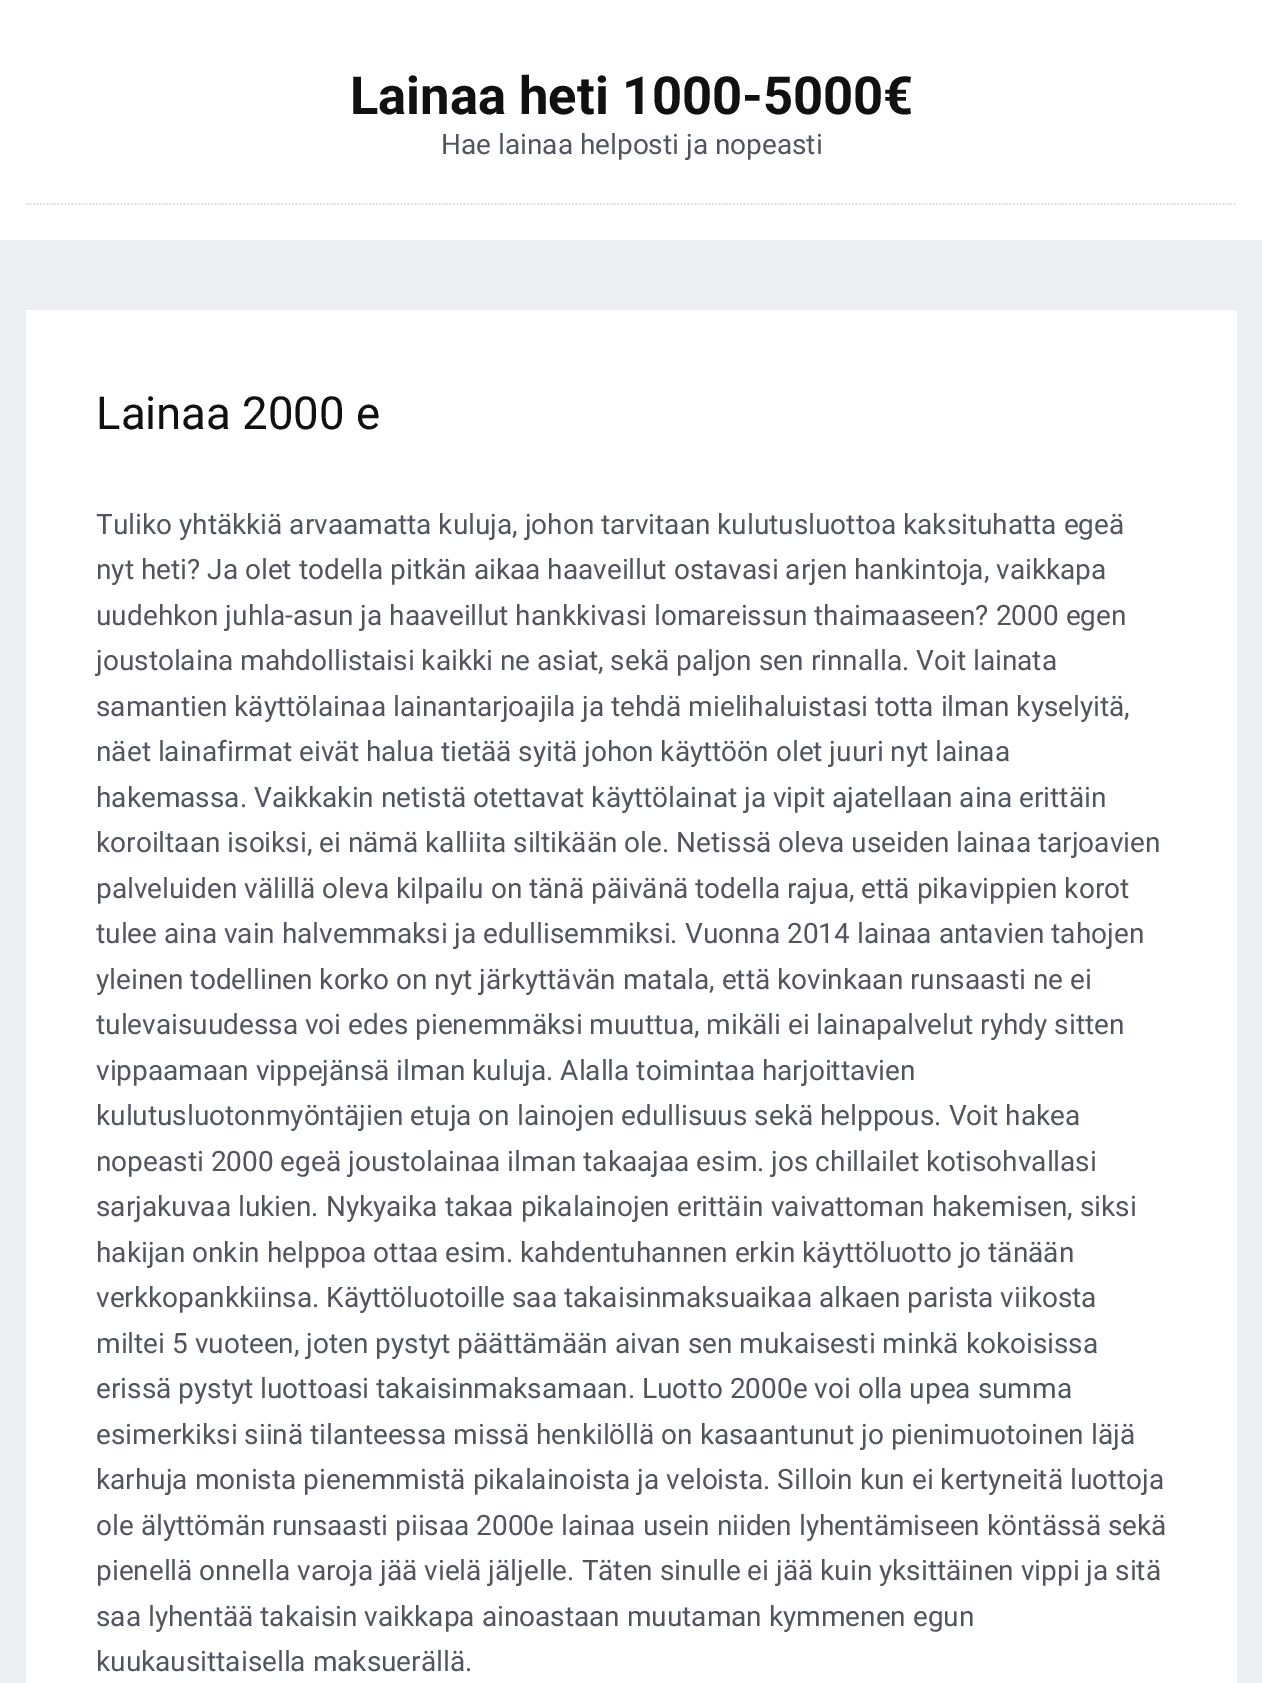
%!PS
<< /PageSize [1262 1683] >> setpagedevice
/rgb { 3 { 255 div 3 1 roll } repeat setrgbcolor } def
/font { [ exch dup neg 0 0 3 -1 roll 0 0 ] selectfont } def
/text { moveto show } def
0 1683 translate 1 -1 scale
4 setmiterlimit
237 239 242 rgb
0 0 1262 1683 rectfill
255 255 255 rgb
0 0 1262 240 rectfill
221 221 221 rgb
1.8 setlinewidth
[1.75 1.75] 0 setdash
26 204 moveto 1211 0 rlineto stroke
255 255 255 rgb
26 310 1211 1373 rectfill
/Roboto-Bold 52.5 font
17 17 17 rgb
(Lainaa heti 1000-5000€) 350 114 text
/Roboto-Regular 28 font
81 86 94 rgb
(Hae lainaa helposti ja nopeasti) 441 154 text
/Roboto-Regular 45.5 font
17 17 17 rgb
(Lainaa 2000 e) 96 429 text
/Roboto-Regular 28 font
81 86 94 rgb
(Tuliko yhtäkkiä arvaamatta kuluja, johon tarvitaan kulutusluottoa kaksituhatta egeä) 96 534 text
(nyt heti? Ja olet todella pitkän aikaa haaveillut ostavasi arjen hankintoja, vaikkapa) 96 579 text
(uudehkon juhla-asun ja haaveillut hankkivasi lomareissun thaimaaseen? 2000 egen) 96 625 text
(joustolaina mahdollistaisi kaikki ne asiat, sekä paljon sen rinnalla. Voit lainata) 96 670 text
(samantien käyttölainaa lainantarjoajila ja tehdä mielihaluistasi totta ilman kyselyitä,) 96 716 text
(näet lainafirmat eivät halua tietää syitä johon käyttöön olet juuri nyt lainaa) 96 761 text
(hakemassa. Vaikkakin netistä otettavat käyttölainat ja vipit ajatellaan aina erittäin) 96 807 text
(koroiltaan isoiksi, ei nämä kalliita siltikään ole. Netissä oleva useiden lainaa tarjoavien) 96 852 text
(palveluiden välillä oleva kilpailu on tänä päivänä todella rajua, että pikavippien korot) 96 898 text
(tulee aina vain halvemmaksi ja edullisemmiksi. Vuonna 2014 lainaa antavien tahojen) 96 943 text
(yleinen todellinen korko on nyt järkyttävän matala, että kovinkaan runsaasti ne ei) 96 989 text
(tulevaisuudessa voi edes pienemmäksi muuttua, mikäli ei lainapalvelut ryhdy sitten) 96 1034 text
(vippaamaan vippejänsä ilman kuluja. Alalla toimintaa harjoittavien) 96 1080 text
(kulutusluotonmyöntäjien etuja on lainojen edullisuus sekä helppous. Voit hakea) 96 1125 text
(nopeasti 2000 egeä joustolainaa ilman takaajaa esim. jos chillailet kotisohvallasi) 96 1171 text
(sarjakuvaa lukien. Nykyaika takaa pikalainojen erittäin vaivattoman hakemisen, siksi) 96 1216 text
(hakijan onkin helppoa ottaa esim. kahdentuhannen erkin käyttöluotto jo tänään) 96 1262 text
(verkkopankkiinsa. Käyttöluotoille saa takaisinmaksuaikaa alkaen parista viikosta) 96 1307 text
(miltei 5 vuoteen, joten pystyt päättämään aivan sen mukaisesti minkä kokoisissa) 96 1353 text
(erissä pystyt luottoasi takaisinmaksamaan. Luotto 2000e voi olla upea summa) 96 1398 text
(esimerkiksi siinä tilanteessa missä henkilöllä on kasaantunut jo pienimuotoinen läjä) 96 1444 text
(karhuja monista pienemmistä pikalainoista ja veloista. Silloin kun ei kertyneitä luottoja) 96 1489 text
(ole älyttömän runsaasti piisaa 2000e lainaa usein niiden lyhentämiseen köntässä sekä) 96 1535 text
(pienellä onnella varoja jää vielä jäljelle. Täten sinulle ei jää kuin yksittäinen vippi ja sitä) 96 1580 text
(saa lyhentää takaisin vaikkapa ainoastaan muutaman kymmenen egun) 96 1626 text
(kuukausittaisella maksuerällä.) 96 1671 text
showpage
